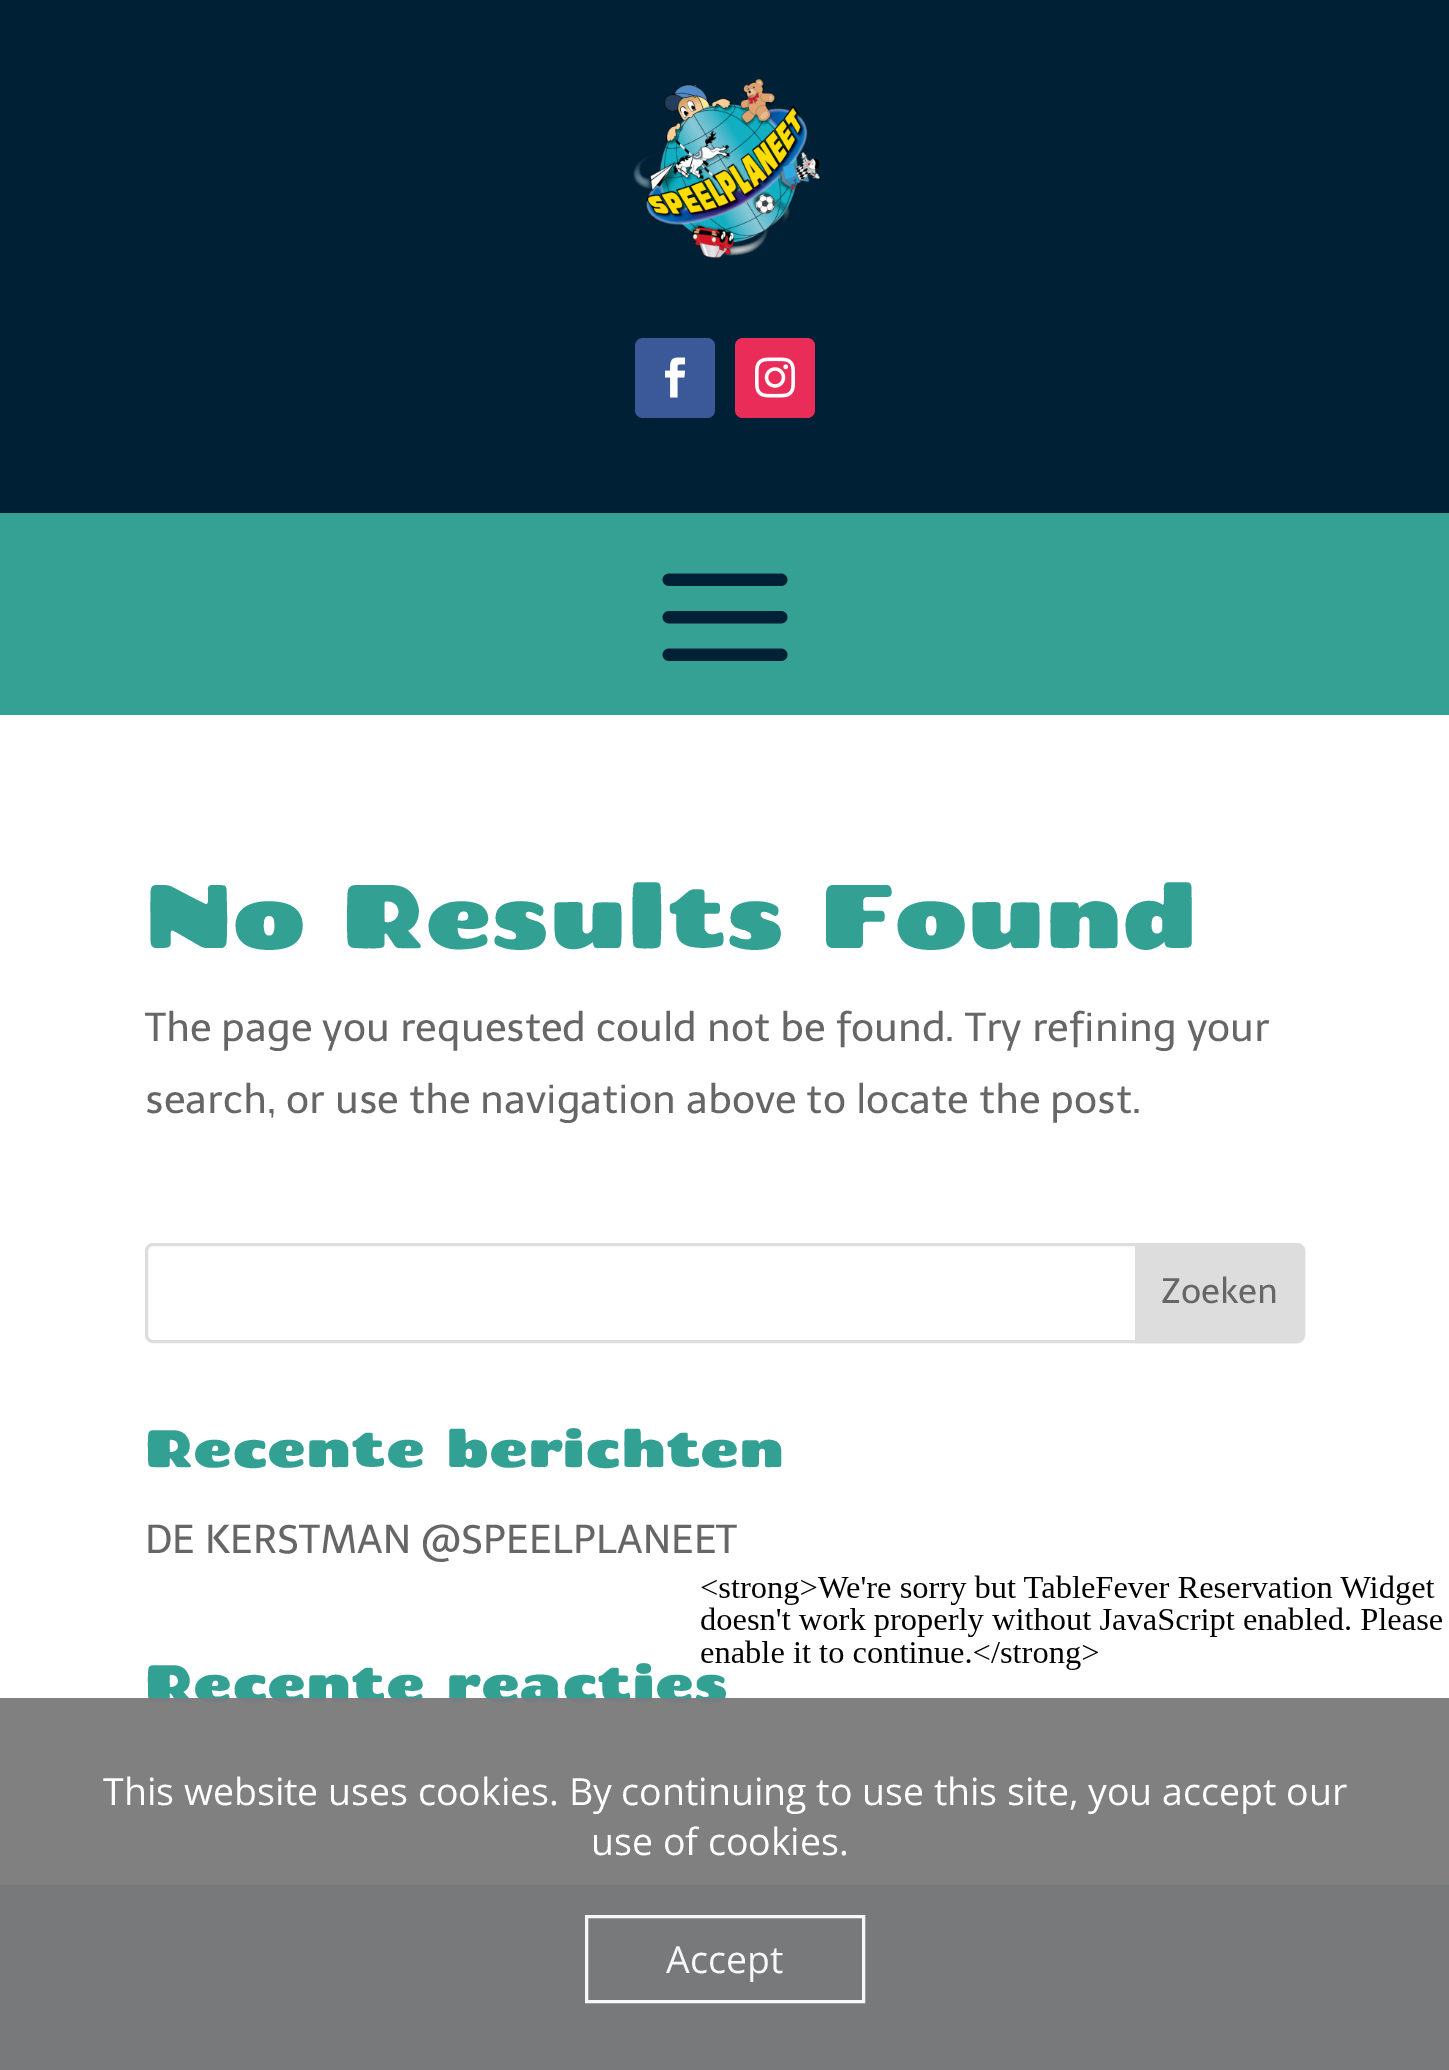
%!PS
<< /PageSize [1449 2070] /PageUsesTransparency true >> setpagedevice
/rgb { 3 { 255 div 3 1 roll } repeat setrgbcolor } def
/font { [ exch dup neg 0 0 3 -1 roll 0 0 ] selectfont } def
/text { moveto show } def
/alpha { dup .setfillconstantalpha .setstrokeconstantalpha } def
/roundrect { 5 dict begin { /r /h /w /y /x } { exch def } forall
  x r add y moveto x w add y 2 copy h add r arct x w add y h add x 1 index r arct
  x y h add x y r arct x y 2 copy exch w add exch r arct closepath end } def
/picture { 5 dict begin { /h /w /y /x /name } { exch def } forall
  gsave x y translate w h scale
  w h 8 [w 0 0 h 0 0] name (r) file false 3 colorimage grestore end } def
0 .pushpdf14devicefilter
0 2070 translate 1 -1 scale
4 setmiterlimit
0 33 53 rgb
0 0 1449 2070 rectfill
(img_01.rgb) 633 78 187 180 picture
59 89 152 rgb
635 338 80 80 8 roundrect fill
(img_02.rgb) 665 357 21 41 picture
234 44 89 rgb
735 338 80 80 8 roundrect fill
(img_03.rgb) 755 357 40 41 picture
53 160 148 rgb
0 513 1449 202 rectfill
(img_04.rgb) 662 573 126 88 picture
255 255 255 rgb
0 715 1449 1170 rectfill
221 221 221 rgb
3 setlinewidth
146.5 1244.5 1157 97 6.5 roundrect stroke
1136.5 1244.5 moveto 160.5 0 rlineto 3.5 0 6.5 3 6.5 6.5 rcurveto 0 84 rlineto 0 3.5 -3 6.5 -6.5 6.5 rcurveto -160.5 0 rlineto closepath gsave fill grestore
stroke
/Chango-Regular 90 font
51 160 148 rgb
(No Results Found) 145 948 text
/Telex-Regular 40 font
102 102 102 rgb
(The page you requested could not be found. Try refining your) 145 1041 text
(search, or use the navigation above to locate the post.) 145 1113 text
/Telex-Regular 35 font
(Zoeken) 1161 1303 text
/Chango-Regular 52.5 font
51 160 148 rgb
(Recente berichten) 145 1467 text
/Telex-Regular 40 font
102 102 102 rgb
(DE KERSTMAN @SPEELPLANEET) 145 1553 text
/Chango-Regular 52.5 font
51 160 148 rgb
(Recente reacties) 145 1702 text
(img_05.rgb) 701 1575 742 95 picture
0.97 alpha
124 124 124 rgb
0 1698 1449 372 rectfill
/OpenSans-Regular 37.5 font
1 alpha
255 255 255 rgb
(This website uses cookies. By continuing to use this site, you accept our) 103 1805 text
(use of cookies.) 591 1855 text
247 248 249 rgb
586.5 1916.5 277 85 rectstroke
(Accept) 666 1973 text
.poppdf14devicefilter showpage
